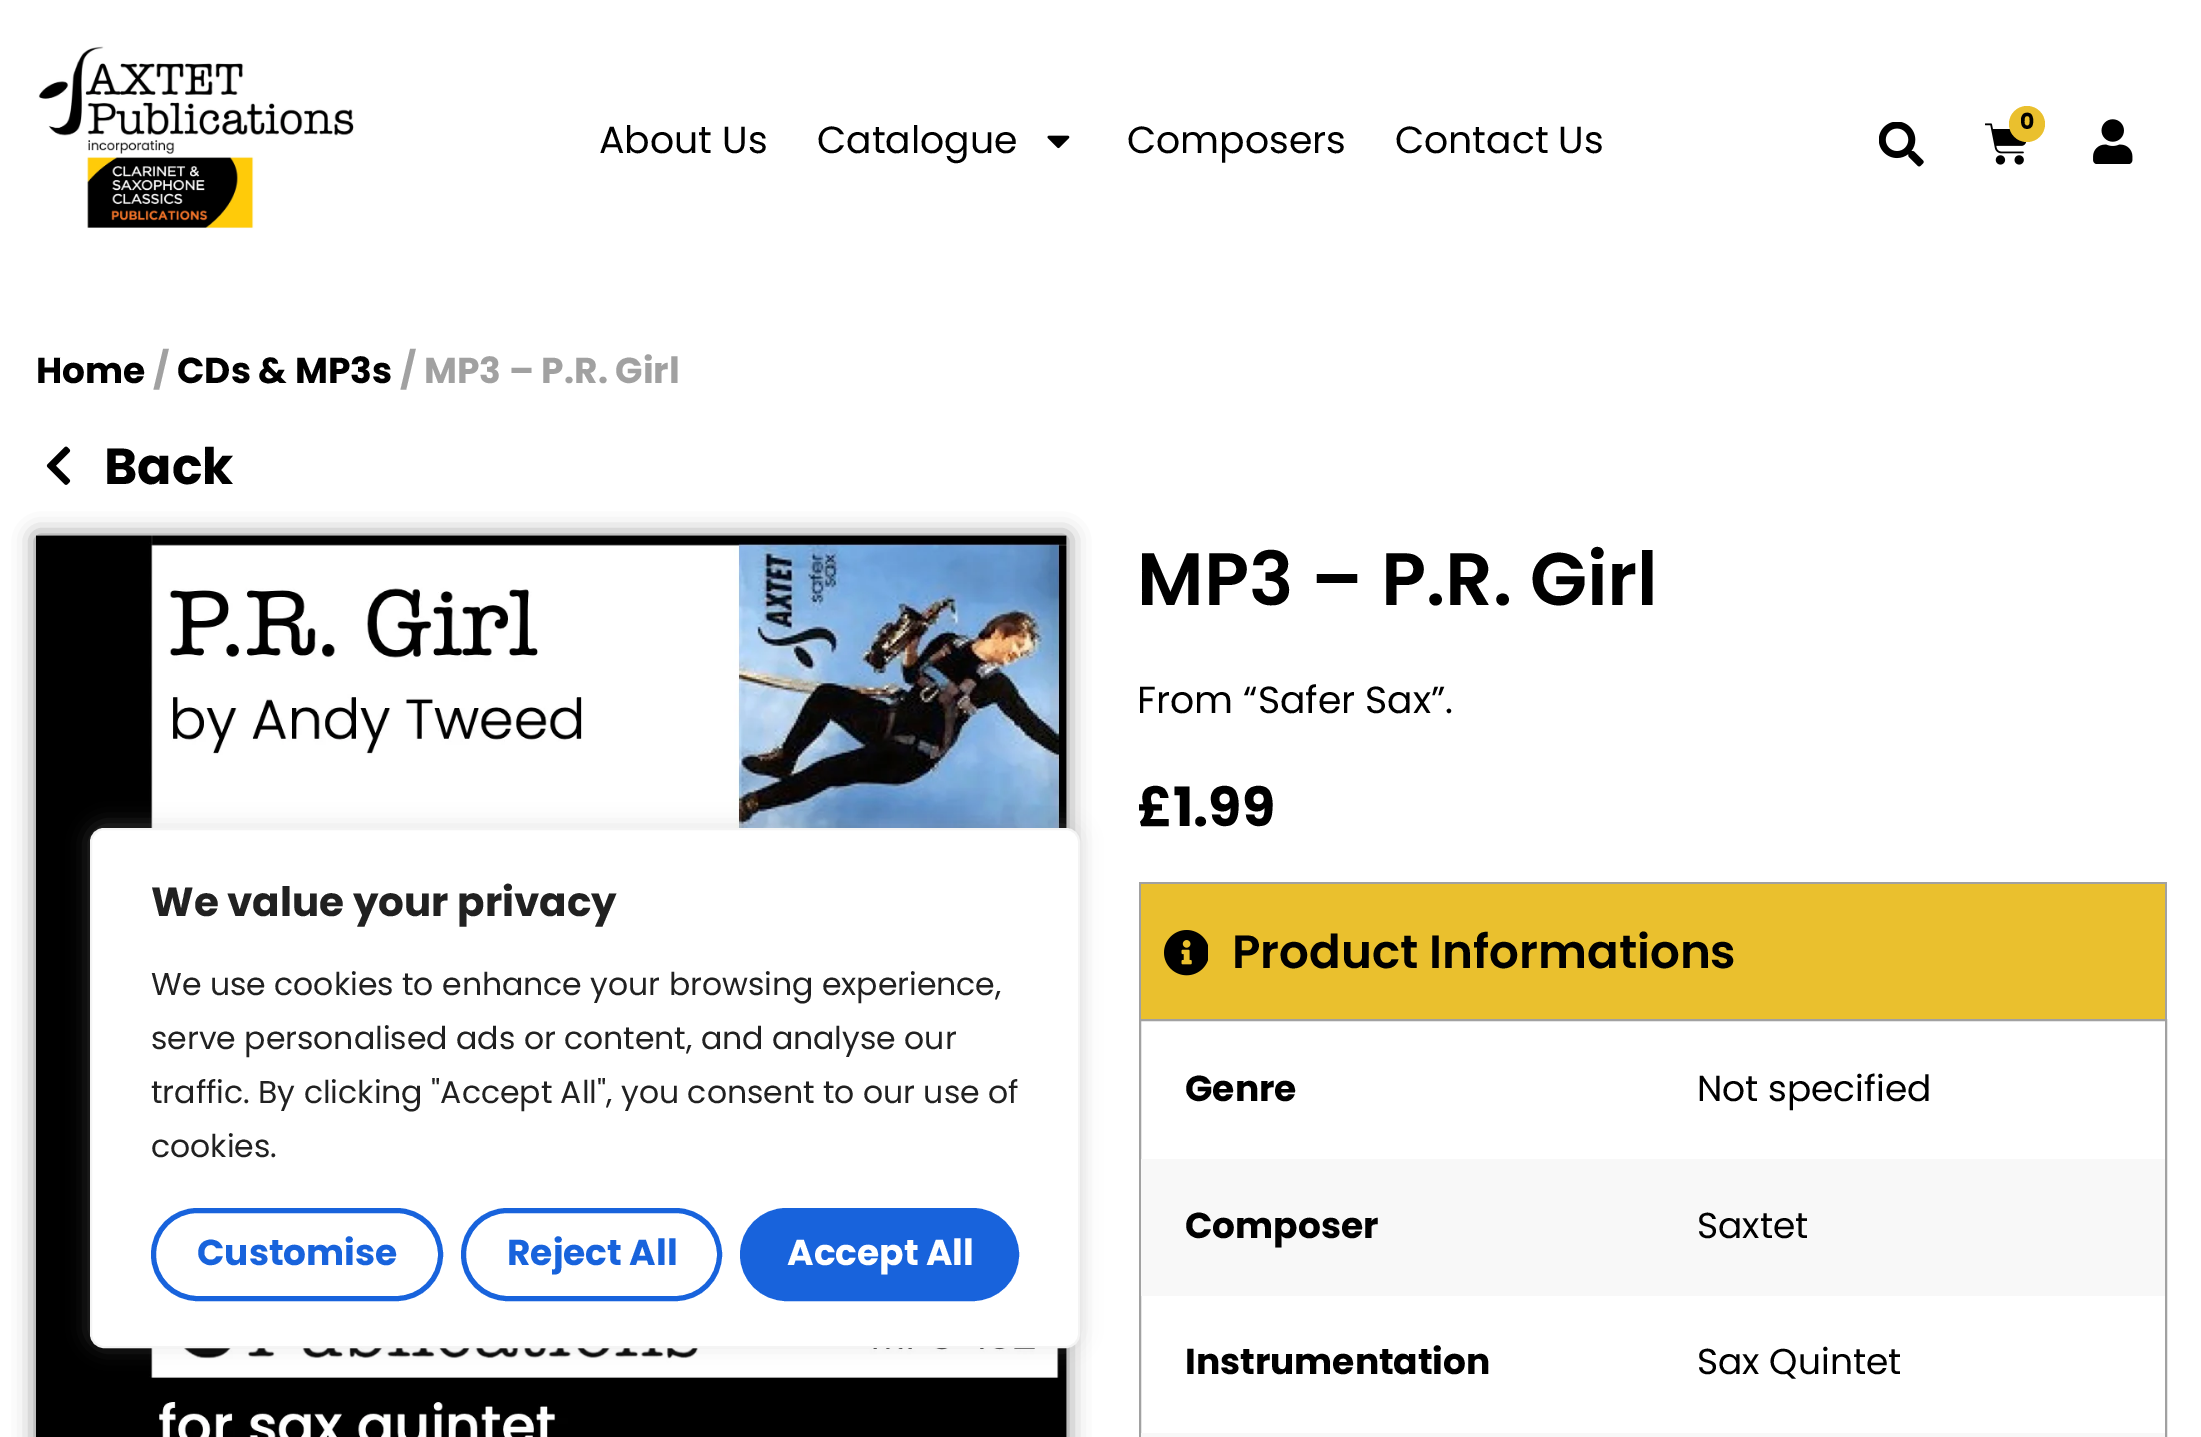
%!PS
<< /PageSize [2201 1437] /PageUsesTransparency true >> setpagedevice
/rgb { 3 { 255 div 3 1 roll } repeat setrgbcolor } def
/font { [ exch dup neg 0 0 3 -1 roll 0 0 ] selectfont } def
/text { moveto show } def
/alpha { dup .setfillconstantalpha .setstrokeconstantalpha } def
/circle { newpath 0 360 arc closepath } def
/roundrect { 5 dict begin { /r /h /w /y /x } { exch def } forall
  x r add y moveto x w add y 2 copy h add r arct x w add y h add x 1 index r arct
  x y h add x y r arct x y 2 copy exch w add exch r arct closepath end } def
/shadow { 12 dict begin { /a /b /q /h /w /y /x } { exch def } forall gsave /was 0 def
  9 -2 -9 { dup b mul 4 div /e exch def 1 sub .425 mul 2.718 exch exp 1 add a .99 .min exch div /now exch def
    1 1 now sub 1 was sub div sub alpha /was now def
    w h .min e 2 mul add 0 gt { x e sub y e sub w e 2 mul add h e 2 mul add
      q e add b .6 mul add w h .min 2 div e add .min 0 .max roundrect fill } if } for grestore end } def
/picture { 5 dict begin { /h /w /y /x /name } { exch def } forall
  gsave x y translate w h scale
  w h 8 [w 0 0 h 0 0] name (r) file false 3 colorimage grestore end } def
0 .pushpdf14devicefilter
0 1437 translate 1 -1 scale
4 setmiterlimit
255 255 255 rgb
0 0 2201 1437 rectfill
(img_01.rgb) 38 46 316 183 picture
(img_02.rgb) 1047 135 23 14 picture
(img_03.rgb) 1879 122 45 45 picture
(img_04.rgb) 1985 123 42 42 picture
234 192 46 rgb
2027 124 18 circle fill
(img_05.rgb) 2093 119 40 45 picture
(img_06.rgb) 46 446 25 39 picture
0 0 0 rgb
36 536 1031 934 0 11 0.5 shadow
(img_07.rgb) 36 535 1031 902 picture
234 192 46 rgb
1141 884 1024 135 rectfill
161 161 161 rgb
1139 882 1028 2 rectfill
2165 882 2 137 rectfill
1139 882 2 137 rectfill
(img_08.rgb) 1164 930 44 46 picture
2 setlinewidth
1140 1020 1026 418 rectstroke
248 248 248 rgb
1141 1159 1024 137 rectfill
1141 1433 1024 4 rectfill
172 171 171 rgb
90 826 990 520 14 11 0.3 shadow
255 255 255 rgb
91 829 988 518 13 roundrect gsave fill grestore
244 244 244 rgb
stroke
24 99 220 rgb
5 setlinewidth
153.5 1210.5 287 88 44 roundrect stroke
463.5 1210.5 256 88 44 roundrect stroke
742.5 1210.5 274 88 44 roundrect gsave fill grestore
stroke
/Poppins-Regular 37.75 font
0 0 0 rgb
(About Us) 599 153 text
(Catalogue) 817 153 text
(Composers) 1127 153 text
(Contact Us) 1395 153 text
/Poppins-Bold 22 font
(0) 2020 129 text
/Poppins-Bold 36 font
(Home) 36 383 text
161 161 161 rgb
(/) 153 383 text
0 0 0 rgb
(CDs & MP3s) 177 383 text
161 161 161 rgb
(/ MP3 – P.R. Girl) 400 383 text
/Poppins-Bold 50.5 font
0 0 0 rgb
(Back) 104 484 text
/Poppins-SemiBold 74.25 font
(MP3 – P.R. Girl) 1137 605 text
/Poppins-Regular 37.75 font
(From “Safer Sax”.) 1137 713 text
/Poppins-Bold 54 font
(£1.99) 1137 826 text
/Poppins-SemiBold 46.75 font
(Product Informations) 1232 968 text
/Poppins-Bold 36 font
(Genre) 1185 1101 text
/Poppins-Regular 36 font
(Not specified) 1697 1101 text
/Poppins-Bold 36 font
(Composer) 1185 1238 text
/Poppins-Regular 36 font
(Saxtet) 1697 1238 text
/Poppins-Bold 36 font
(Instrumentation) 1185 1374 text
/Poppins-Regular 36 font
(Sax Quintet) 1697 1374 text
/Poppins-Bold 40.5 font
33 33 33 rgb
(We value your privacy) 151 916 text
/Poppins-Regular 31.5 font
(We use cookies to enhance your browsing experience,) 151 995 text
(serve personalised ads or content, and analyse our) 151 1049 text
(traffic. By clicking "Accept All", you consent to our use of) 151 1103 text
(cookies.) 151 1157 text
/Poppins-Bold 36 font
24 99 220 rgb
(Customise) 197 1265 text
(Reject All) 507 1265 text
255 255 255 rgb
(Accept All) 787 1265 text
.poppdf14devicefilter showpage
